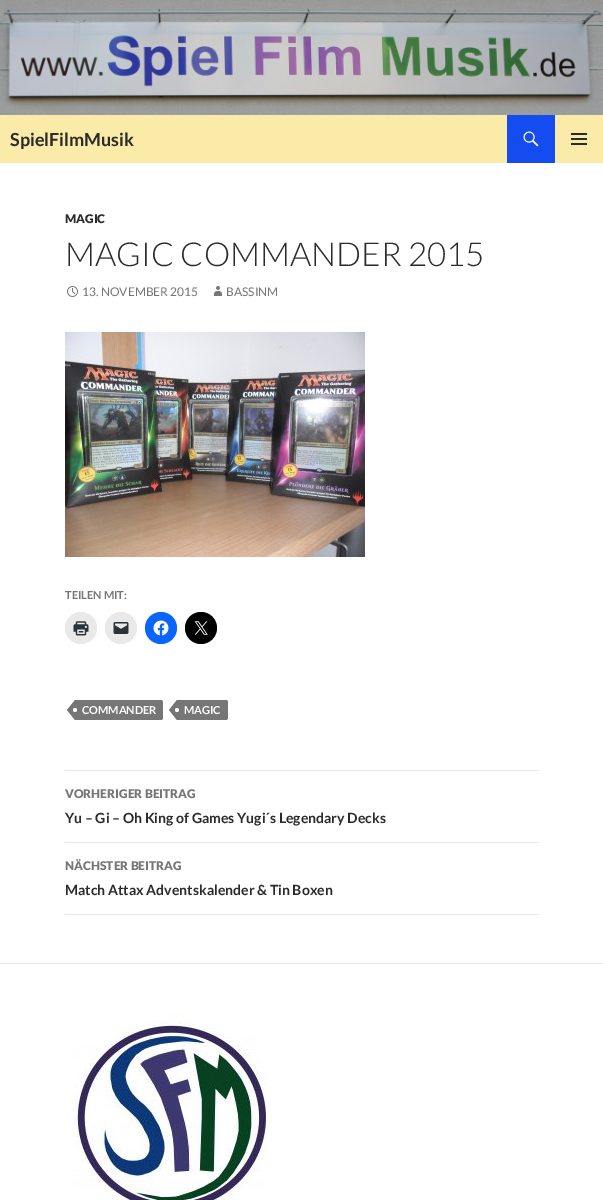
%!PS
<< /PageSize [603 1200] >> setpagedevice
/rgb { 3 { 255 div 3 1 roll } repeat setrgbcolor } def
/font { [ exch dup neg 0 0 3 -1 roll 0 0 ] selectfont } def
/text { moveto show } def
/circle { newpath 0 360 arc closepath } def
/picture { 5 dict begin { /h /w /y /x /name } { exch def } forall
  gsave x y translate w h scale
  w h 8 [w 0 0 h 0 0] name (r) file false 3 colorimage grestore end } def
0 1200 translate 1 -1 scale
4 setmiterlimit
255 255 255 rgb
0 0 603 1200 rectfill
(img_01.rgb) 0 0 603 115 picture
251 235 169 rgb
0 115 603 48 rectfill
21 76 239 rgb
507 115 48 48 rectfill
(img_02.rgb) 523 131 16 16 picture
(img_03.rgb) 571 133 16 12 picture
(img_04.rgb) 67 286 11 11 picture
(img_05.rgb) 214 286 8 10 picture
(img_06.rgb) 65 332 300 225 picture
233 233 233 rgb
81 628 16 circle fill
(img_07.rgb) 73 621 16 15 picture
121 628 16 circle fill
(img_08.rgb) 113 622 16 12 picture
8 102 255 rgb
161 628 16 circle fill
(img_09.rgb) 153 620 16 16 picture
0 0 0 rgb
201 628 16 circle fill
(img_10.rgb) 194 621 14 14 picture
118 118 118 rgb
75 700 moveto 86 0 rlineto 1 0 2 1 2 2 rcurveto 0 16 rlineto 0 1 -1 2 -2 2 rcurveto -86 0 rlineto closepath fill
75 700 moveto 0 20 rlineto -8 -10 rlineto closepath fill
255 255 255 rgb
75 710 2 circle fill
118 118 118 rgb
177 700 moveto 49 0 rlineto 1 0 2 1 2 2 rcurveto 0 16 rlineto 0 1 -1 2 -2 2 rcurveto -49 0 rlineto closepath fill
177 700 moveto 0 20 rlineto -8 -10 rlineto closepath fill
255 255 255 rgb
177 710 2 circle fill
230 230 230 rgb
65 770 474 1 rectfill
65 842 474 1 rectfill
65 914 474 1 rectfill
0 963 603 1 rectfill
(img_11.rgb) 74 1012 192 188 picture
/Lato-Bold 18 font
43 43 43 rgb
(SpielFilmMusik) 10 146 text
/Lato-Black 12 font
(MAGIC) 65 223 text
/Lato-Light 33 font
(MAGIC COMMANDER 2015) 65 266 text
/Lato-Regular 12 font
118 118 118 rgb
(13. NOVEMBER 2015) 82 296 text
(BASSINM) 226 296 text
/Lato-Bold 11 font
(TEILEN MIT:) 65 599 text
255 255 255 rgb
(COMMANDER) 82 714 text
(MAGIC) 184 714 text
/Lato-Black 12 font
118 118 118 rgb
(VORHERIGER BEITRAG) 65 798 text
/Lato-Bold 14 font
43 43 43 rgb
(Yu – Gi – Oh King of Games Yugi´s Legendary Decks) 65 823 text
/Lato-Black 12 font
118 118 118 rgb
(NÄCHSTER BEITRAG) 65 870 text
/Lato-Bold 14 font
43 43 43 rgb
(Match Attax Adventskalender & Tin Boxen) 65 895 text
showpage
